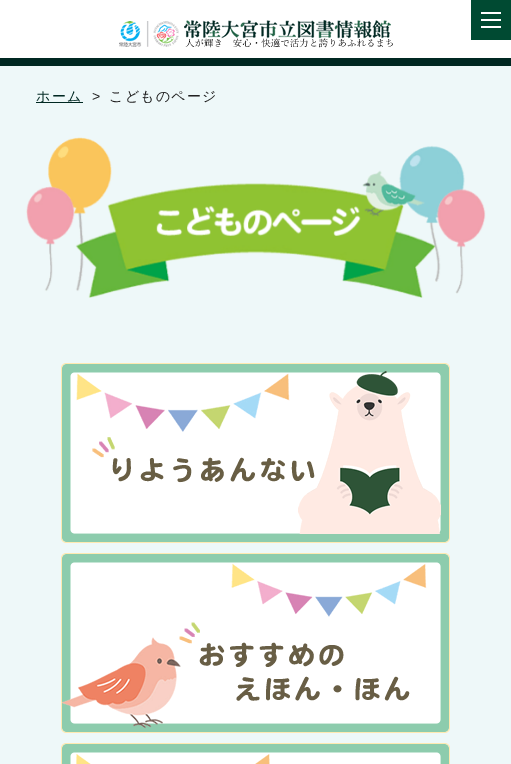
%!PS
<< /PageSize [511 764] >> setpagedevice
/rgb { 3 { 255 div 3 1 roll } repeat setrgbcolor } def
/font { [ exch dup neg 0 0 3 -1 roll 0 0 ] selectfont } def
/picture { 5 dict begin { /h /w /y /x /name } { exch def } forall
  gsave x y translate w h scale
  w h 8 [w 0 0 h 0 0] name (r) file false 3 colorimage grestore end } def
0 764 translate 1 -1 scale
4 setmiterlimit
255 255 255 rgb
0 0 511 764 rectfill
0 74 50 rgb
471 0 40 40 rectfill
255 255 255 rgb
481 19 20 2 rectfill
481 12 20 2 rectfill
481 26 20 2 rectfill
(img_01.rgb) 119 20 274 28 picture
0 40 34 rgb
0 58 511 8 rectfill
238 248 249 rgb
0 66 511 698 rectfill
0 40 34 rgb
36 102 47 1 rectfill
(img_02.rgb) 26 137 460 161 picture
(img_03.rgb) 61 363 389 180 picture
(img_04.rgb) 61 553 389 180 picture
(img_05.rgb) 61 743 389 21 picture
/WenQuanYiZenHei-Medium 14 font
36 101 moveto 1.25 0 (ホーム) ashow
/LiberationSans-Regular 14 font
33 33 33 rgb
92 101 moveto 1.25 0 (>) ashow
/WenQuanYiZenHei-Medium 14 font
109 101 moveto 1.25 0 (こどものページ) ashow
showpage
